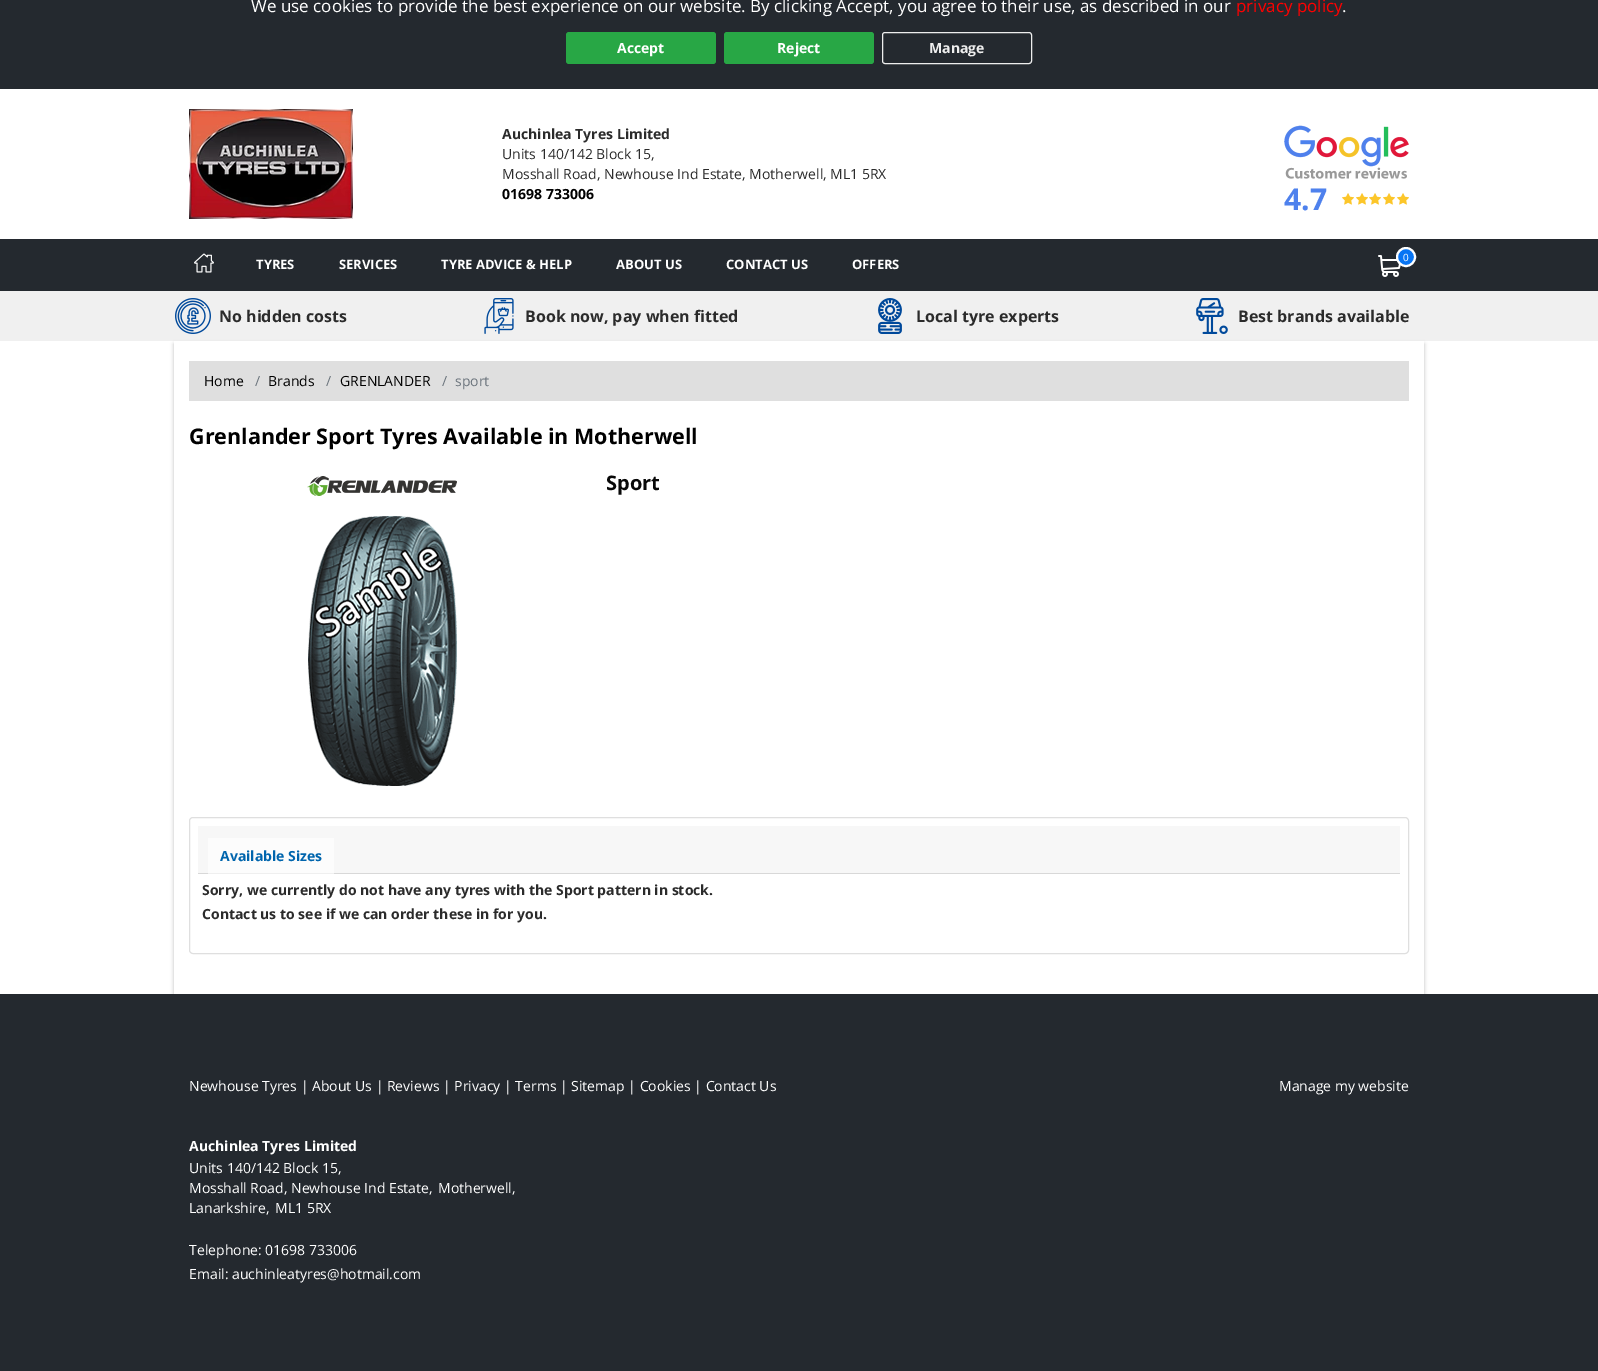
%!PS
<< /PageSize [1598 1371] /PageUsesTransparency true >> setpagedevice
/rgb { 3 { 255 div 3 1 roll } repeat setrgbcolor } def
/font { [ exch dup neg 0 0 3 -1 roll 0 0 ] selectfont } def
/text { moveto show } def
/alpha { dup .setfillconstantalpha .setstrokeconstantalpha } def
/circle { newpath 0 360 arc closepath } def
/roundrect { 5 dict begin { /r /h /w /y /x } { exch def } forall
  x r add y moveto x w add y 2 copy h add r arct x w add y h add x 1 index r arct
  x y h add x y r arct x y 2 copy exch w add exch r arct closepath end } def
/shadow { 12 dict begin { /a /b /q /h /w /y /x } { exch def } forall gsave /was 0 def
  9 -2 -9 { dup b mul 4 div /e exch def 1 sub .425 mul 2.718 exch exp 1 add a .99 .min exch div /now exch def
    1 1 now sub 1 was sub div sub alpha /was now def
    w h .min e 2 mul add 0 gt { x e sub y e sub w e 2 mul add h e 2 mul add
      q e add b .6 mul add w h .min 2 div e add .min 0 .max roundrect fill } if } for grestore end } def
/picture { 5 dict begin { /h /w /y /x /name } { exch def } forall
  gsave x y translate w h scale
  w h 8 [w 0 0 h 0 0] name (r) file false 3 colorimage grestore end } def
0 .pushpdf14devicefilter
0 1371 translate 1 -1 scale
4 setmiterlimit
255 255 255 rgb
0 0 1598 1371 rectfill
36 41 47 rgb
0 0 1598 89 rectfill
40 167 69 rgb
566 32 150 32 3 roundrect fill
724 32 150 32 3 roundrect fill
238 238 238 rgb
882.5 32.5 149 31 2.5 roundrect stroke
(img_01.rgb) 189 109 164 110 picture
(img_02.rgb) 1284 125 125 54 picture
(img_03.rgb) 1342 193 12 12 picture
(img_03.rgb) 1356 193 12 12 picture
(img_03.rgb) 1369 193 12 12 picture
(img_03.rgb) 1383 193 12 12 picture
(img_03.rgb) 1397 193 12 12 picture
36 41 47 rgb
0 239 1598 52 rectfill
(img_04.rgb) 194 253 20 20 picture
(img_05.rgb) 1378 255 23 22 picture
8 117 244 rgb
1406 257 9 circle gsave fill grestore
255 255 255 rgb
2 setlinewidth
stroke
240 240 240 rgb
0 291 1598 50 rectfill
(img_06.rgb) 175 298 36 36 picture
(img_07.rgb) 484 298 30 36 picture
(img_08.rgb) 878 298 24 36 picture
(img_09.rgb) 1196 298 32 36 picture
gsave
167 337 moveto 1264 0 rlineto 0 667 rlineto -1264 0 rlineto closepath 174 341 moveto 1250 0 rlineto 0 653 rlineto -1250 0 rlineto closepath eoclip newpath
187 187 187 rgb
174 344 1250 653 0 2 1 shadow
grestore
223 223 223 rgb
189 361 1220 40 rectfill
(img_10.rgb) 307 476 150 20 picture
(img_11.rgb) 308 516 149 270 picture
1 setlinewidth
189.5 817.5 1219 136 3.5 roundrect stroke
247 247 247 rgb
198 826 1202 47 rectfill
252 252 252 rgb
208 838 126 35 rectfill
216 216 216 rgb
198 873 1202 1 rectfill
239 239 239 rgb
208 873 126 1 rectfill
36 41 47 rgb
0 994 1598 377 rectfill
/OpenSans-Regular 17 font
255 255 255 rgb
(We use cookies to provide the best experience on our website. By clicking Accept, you agree to their use, as described in our) 251 12 text
255 0 0 rgb
(privacy policy) 1236 12 text
255 255 255 rgb
(.) 1342 12 text
/OpenSans-Bold 14 font
(Accept) 617 53 text
(Reject) 777 53 text
238 238 238 rgb
(Manage) 929 53 text
43 43 43 rgb
(Auchinlea Tyres Limited) 502 139 text
/OpenSans-Regular 14 font
(Units 140/142 Block 15,) 502 159 text
(Mosshall Road, Newhouse Ind Estate, Motherwell, ML1 5RX) 502 179 text
/OpenSans-Bold 14 font
0 0 0 rgb
(01698 733006) 502 199 text
/OpenSans-Bold 30 font
78 129 237 rgb
(4.7) 1284 210 text
/OpenSans-Regular 10 font
255 255 255 rgb
(0) 1403 261 text
/OpenSans-Bold 13 font
(TYRES) 256 269 text
(SERVICES) 339 269 text
(TYRE ADVICE & HELP) 441 269 text
(ABOUT US) 616 269 text
(CONTACT US) 726 269 text
(OFFERS) 852 269 text
/OpenSans-Bold 16 font
43 43 43 rgb
(No hidden costs) 219 322 text
(Book now, pay when fitted) 525 322 text
(Local tyre experts) 916 322 text
(Best brands available) 1238 322 text
/OpenSans-Regular 14 font
0 0 0 rgb
(Home) 204 386 text
108 117 125 rgb
(/) 255 386 text
0 0 0 rgb
(Brands) 268 386 text
108 117 125 rgb
(/) 326 386 text
0 0 0 rgb
(GRENLANDER) 340 386 text
108 117 125 rgb
(/) 442 386 text
(sport) 455 386 text
/OpenSans-Bold 21.5 font
0 0 0 rgb
(Grenlander Sport Tyres Available in Motherwell) 189 444 text
/OpenSans-Bold 20 font
8 8 8 rgb
(Sport) 606 490 text
/OpenSans-Bold 14 font
0 101 173 rgb
(Available Sizes) 220 861 text
43 43 43 rgb
(Sorry, we currently do not have any tyres with the Sport pattern in stock.) 202 895 text
(Contact us to see if we can order these in for you.) 202 919 text
/OpenSans-Regular 14 font
255 255 255 rgb
(Newhouse Tyres | About Us | Reviews | Privacy | Terms | Sitemap | Cookies | Contact Us) 189 1091 text
(Manage my website) 1279 1091 text
/OpenSans-Bold 14 font
(Auchinlea Tyres Limited) 189 1151 text
/OpenSans-Regular 14 font
(Units 140/142 Block 15,) 189 1173 text
(Mosshall Road, Newhouse Ind Estate,) 189 1193 text
(Motherwell,) 438 1193 text
(Lanarkshire,) 189 1213 text
(ML1 5RX) 275 1213 text
(Telephone: 01698 733006) 189 1255 text
(Email: auchinleatyres@hotmail.com) 189 1279 text
.poppdf14devicefilter showpage
